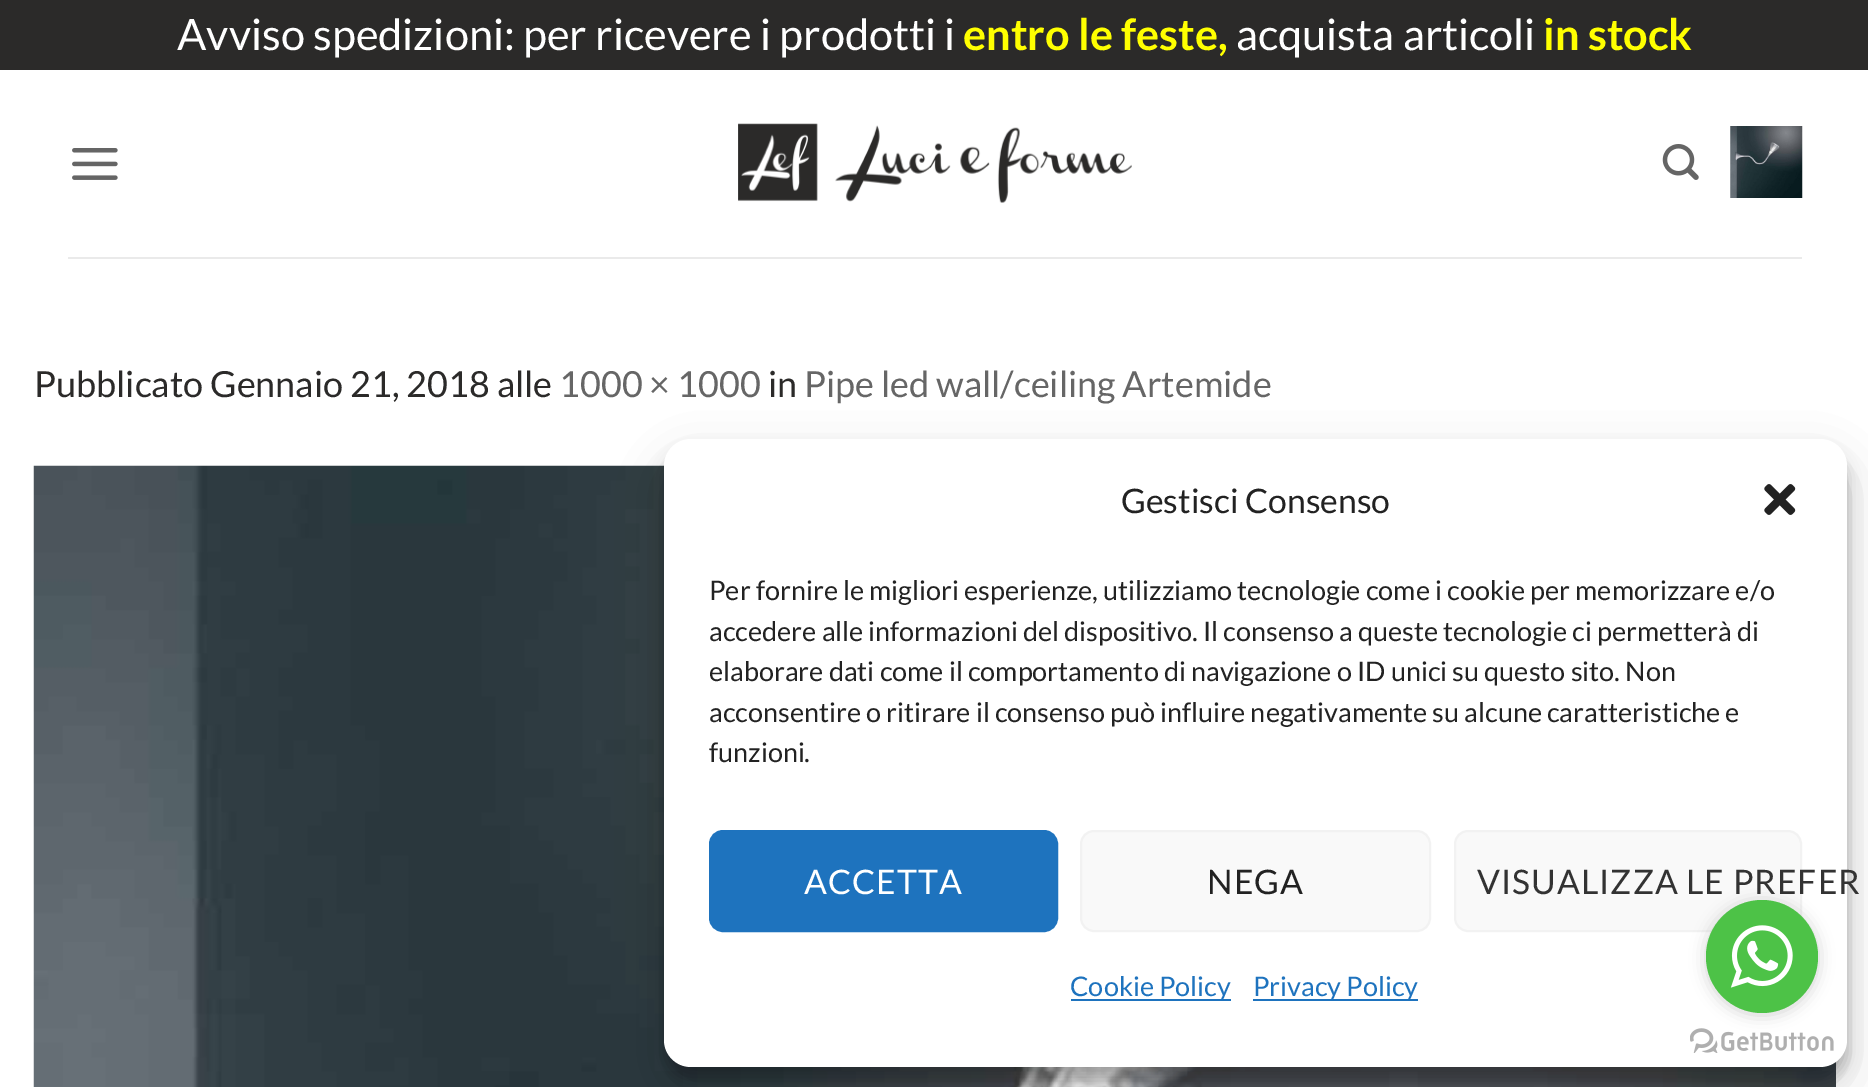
%!PS
<< /PageSize [1868 1087] /PageUsesTransparency true >> setpagedevice
/rgb { 3 { 255 div 3 1 roll } repeat setrgbcolor } def
/font { [ exch dup neg 0 0 3 -1 roll 0 0 ] selectfont } def
/text { moveto show } def
/alpha { dup .setfillconstantalpha .setstrokeconstantalpha } def
/roundrect { 5 dict begin { /r /h /w /y /x } { exch def } forall
  x r add y moveto x w add y 2 copy h add r arct x w add y h add x 1 index r arct
  x y h add x y r arct x y 2 copy exch w add exch r arct closepath end } def
/shadow { 12 dict begin { /a /b /q /h /w /y /x } { exch def } forall gsave /was 0 def
  9 -2 -9 { dup b mul 4 div /e exch def 1 sub .425 mul 2.718 exch exp 1 add a .99 .min exch div /now exch def
    1 1 now sub 1 was sub div sub alpha /was now def
    w h .min e 2 mul add 0 gt { x e sub y e sub w e 2 mul add h e 2 mul add
      q e add b .6 mul add w h .min 2 div e add .min 0 .max roundrect fill } if } for grestore end } def
/picture { 5 dict begin { /h /w /y /x /name } { exch def } forall
  gsave x y translate w h scale
  w h 8 [w 0 0 h 0 0] name (r) file false 3 colorimage grestore end } def
0 .pushpdf14devicefilter
0 1087 translate 1 -1 scale
4 setmiterlimit
255 255 255 rgb
0 0 1868 1087 rectfill
43 42 41 rgb
0 0 1868 70 rectfill
(img_01.rgb) 72 148 46 32 picture
(img_02.rgb) 738 123 394 80 picture
(img_03.rgb) 1662 144 37 36 picture
(img_04.rgb) 1730 126 73 72 picture
234 234 234 rgb
68 257 1734 2 rectfill
(img_05.rgb) 33 465 1803 622 picture
0 0 0 rgb
664 452 1183 628 27 7 0.23 shadow
664 461 1183 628 27 22.5 0.19 shadow
255 255 255 rgb
664 439 1183 628 27 roundrect fill
(img_06.rgb) 1764 484 32 31 picture
30 115 190 rgb
710 831 347 100 13 roundrect gsave fill grestore
2 setlinewidth
stroke
249 249 249 rgb
1081 831 349 100 13 roundrect gsave fill grestore
242 242 242 rgb
stroke
249 249 249 rgb
1455 831 346 100 13 roundrect gsave fill grestore
242 242 242 rgb
stroke
30 115 190 rgb
1071 999 160 2 rectfill
1253 999 165 2 rectfill
(img_08.rgb) 1690 1028 144 25 picture
136 136 136 rgb
1706 902 112 113 56 8 0.4 shadow
77 194 71 rgb
1706 900 112 113 56 roundrect fill
(img_07.rgb) 1730 925 63 63 picture
/Lato-Regular 43.25 font
255 255 255 rgb
(Avviso spedizioni: per ricevere i prodotti i) 177 50 text
/Lato-Bold 43.25 font
255 255 0 rgb
(entro le feste,) 963 50 text
/Lato-Regular 43.25 font
255 255 255 rgb
(acquista articoli) 1236 50 text
/Lato-Bold 43.25 font
255 255 0 rgb
(in stock) 1543 50 text
/Lato-Regular 36 font
43 42 41 rgb
(Pubblicato Gennaio 21, 2018 alle) 34 397 text
102 102 102 rgb
(1000 × 1000) 559 397 text
43 42 41 rgb
(in) 768 397 text
102 102 102 rgb
(Pipe led wall/ceiling Artemide) 804 397 text
/Lato-Regular 33.75 font
34 34 34 rgb
(Gestisci Consenso) 1121 513 text
/Lato-Regular 27 font
(Per fornire le migliori esperienze, utilizziamo tecnologie come i cookie per memorizzare e/o) 709 600 text
(accedere alle informazioni del dispositivo. Il consenso a queste tecnologie ci permetterà di) 709 641 text
(elaborare dati come il comportamento di navigazione o ID unici su questo sito. Non) 709 681 text
(acconsentire o ritirare il consenso può influire negativamente su alcune caratteristiche e) 709 722 text
(funzioni.) 709 762 text
/Lato-Regular 33.75 font
255 255 255 rgb
804 894 moveto 1 0 (ACCETTA) ashow
34 34 34 rgb
1207 894 moveto 1 0 (NEGA) ashow
51 51 51 rgb
1477 894 moveto 1 0 (VISUALIZZA LE PREFER) ashow
/Lato-Regular 27 font
30 115 190 rgb
(Cookie Policy) 1070 996 text
(Privacy Policy) 1253 996 text
.poppdf14devicefilter showpage
